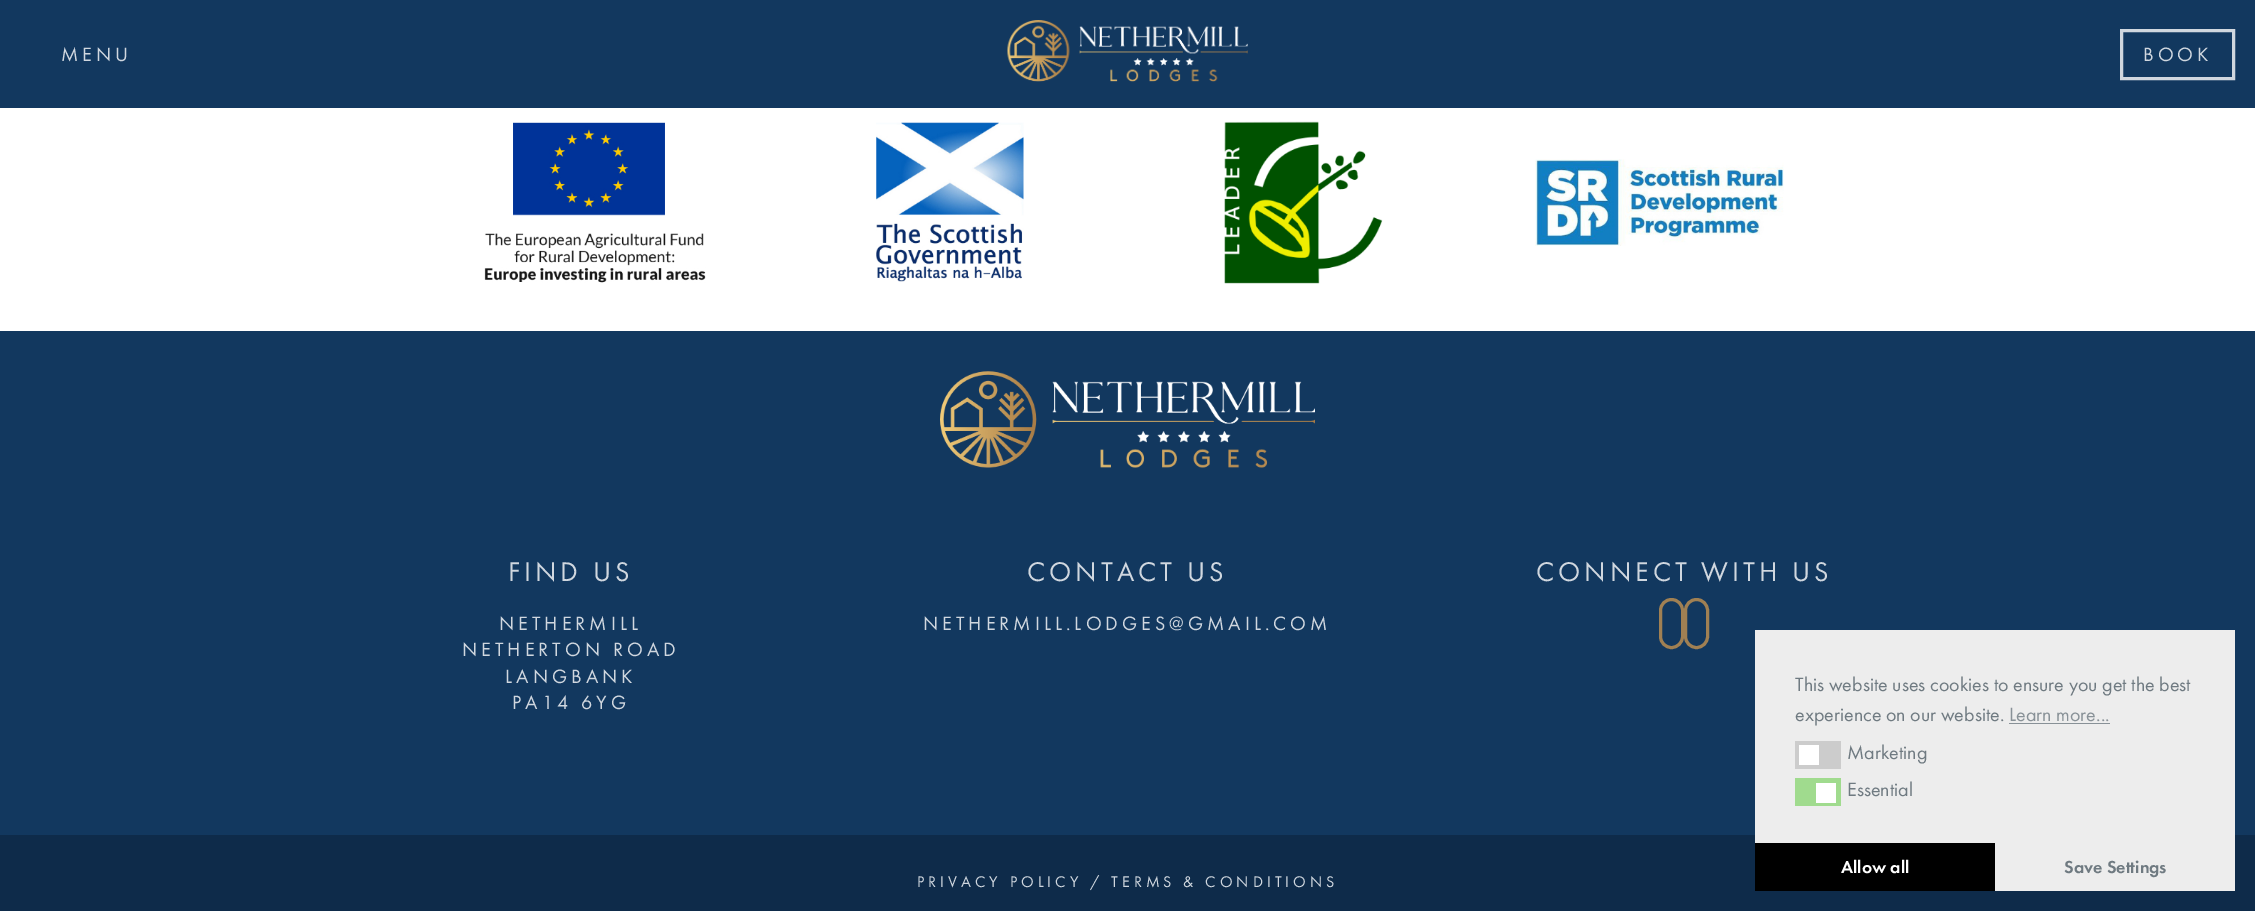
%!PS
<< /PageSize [2255 911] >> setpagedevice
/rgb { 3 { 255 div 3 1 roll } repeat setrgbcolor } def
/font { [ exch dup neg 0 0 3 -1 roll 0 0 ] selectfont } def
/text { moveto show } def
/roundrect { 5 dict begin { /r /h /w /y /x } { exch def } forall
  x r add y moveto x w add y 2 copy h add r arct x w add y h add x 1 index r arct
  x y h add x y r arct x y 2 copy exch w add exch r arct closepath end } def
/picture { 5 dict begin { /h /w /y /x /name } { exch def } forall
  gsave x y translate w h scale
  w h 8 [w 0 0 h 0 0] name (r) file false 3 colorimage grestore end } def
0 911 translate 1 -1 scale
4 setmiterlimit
255 255 255 rgb
0 0 2255 911 rectfill
18 56 95 rgb
0 0 2255 108 rectfill
(img_01.rgb) 1007 20 241 62 picture
208 215 223 rgb
3 setlinewidth
2121.5 30.5 112 48 rectstroke
(img_02.rgb) 484 122 222 161 picture
(img_03.rgb) 876 122 148 160 picture
(img_04.rgb) 1224 121 159 163 picture
(img_05.rgb) 1535 159 249 87 picture
18 56 95 rgb
0 331 2255 504 rectfill
(img_06.rgb) 940 371 375 97 picture
160 128 83 rgb
1660.5 599.5 22 48 11 roundrect stroke
1685.5 599.5 22 48 11 roundrect stroke
14 43 74 rgb
0 835 2255 76 rectfill
237 237 237 rgb
1755 630 480 261 rectfill
136 145 151 rgb
2009 723 101 1 rectfill
204 204 204 rgb
1795 741 46 28 rectfill
255 255 255 rgb
1799 745 20 20 rectfill
160 219 142 rgb
1795 778 46 28 rectfill
255 255 255 rgb
1816 783 20 20 rectfill
0 0 0 rgb
1755 843 240 48 rectfill
/FuturaPT-Regular 20 font
208 215 223 rgb
61 61 moveto 4 0 (MENU) ashow
2143 61 moveto 4 0 (BOOK) ashow
/FuturaPT-Regular 28 font
508 581 moveto 4 0 (FIND US) ashow
/FuturaPT-Regular 20 font
499 630 moveto 4 0 (NETHERMILL) ashow
462 656 moveto 4 0 (NETHERTON ROAD) ashow
505 683 moveto 4 0 (LANGBANK) ashow
512 709 moveto 4 0 (PA14 6YG) ashow
/FuturaPT-Regular 28 font
1027 581 moveto 4 0 (CONTACT US) ashow
/FuturaPT-Regular 20 font
923 630 moveto 4 0 (NETHERMILL.LODGES@GMAIL.COM) ashow
/FuturaPT-Regular 28 font
1536 581 moveto 4 0 (CONNECT WITH US) ashow
/FuturaPT-Regular 16 font
917 887 moveto 4 0 (PRIVACY POLICY / TERMS & CONDITIONS) ashow
/FuturaPT-Regular 20 font
111 122 129 rgb
(This website uses cookies to ensure you get the best) 1795 691 text
(experience on our website.) 1795 721 text
136 145 151 rgb
(Learn more...) 2009 721 text
111 122 129 rgb
(Marketing) 1847 759 text
(Essential) 1847 796 text
/FuturaPT-Medium 18 font
255 255 255 rgb
(Allow all) 1841 873 text
111 122 129 rgb
(Save Settings) 2064 873 text
showpage
